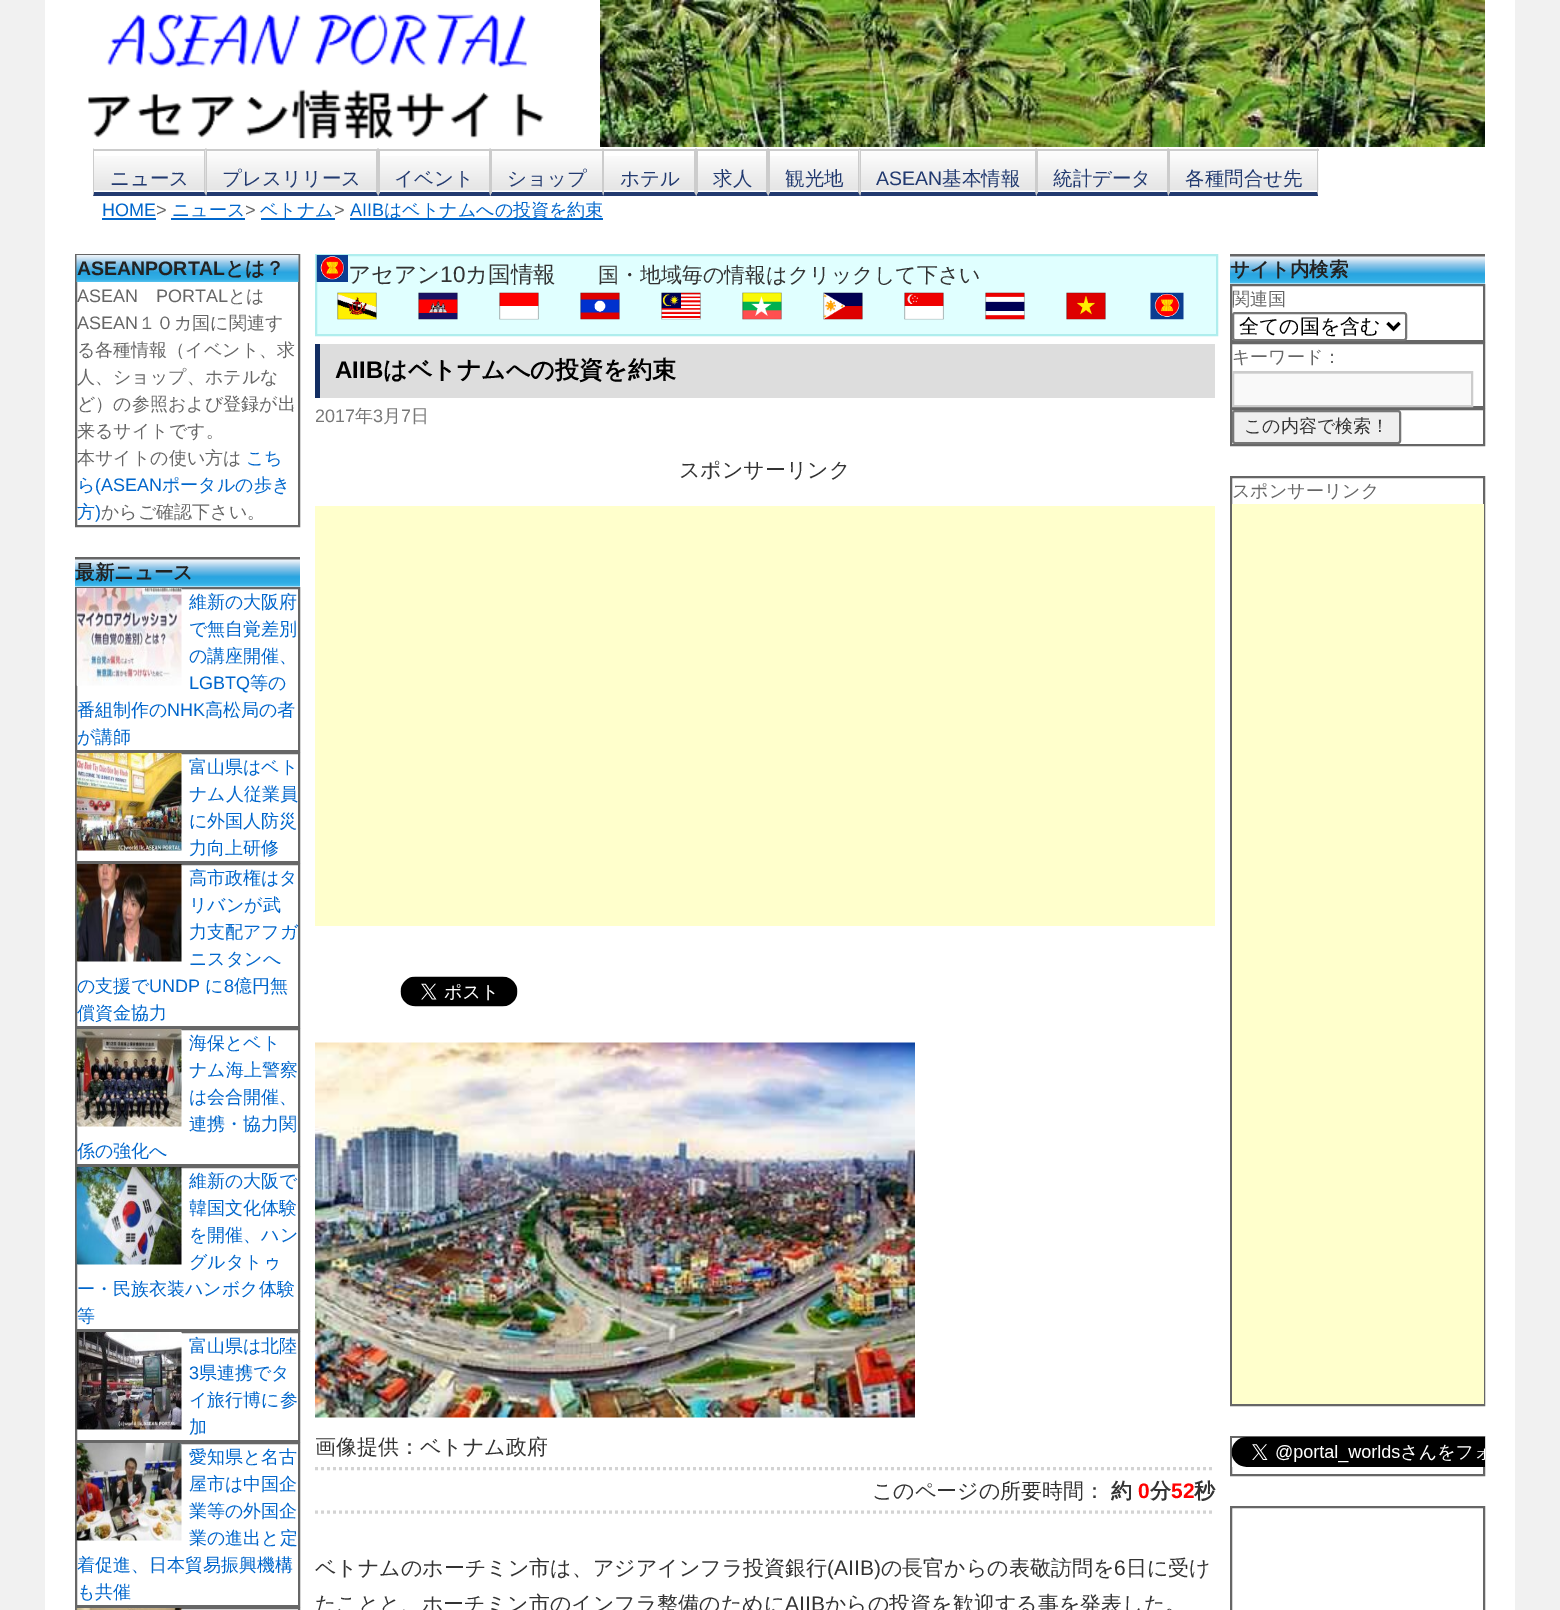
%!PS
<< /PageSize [1560 1610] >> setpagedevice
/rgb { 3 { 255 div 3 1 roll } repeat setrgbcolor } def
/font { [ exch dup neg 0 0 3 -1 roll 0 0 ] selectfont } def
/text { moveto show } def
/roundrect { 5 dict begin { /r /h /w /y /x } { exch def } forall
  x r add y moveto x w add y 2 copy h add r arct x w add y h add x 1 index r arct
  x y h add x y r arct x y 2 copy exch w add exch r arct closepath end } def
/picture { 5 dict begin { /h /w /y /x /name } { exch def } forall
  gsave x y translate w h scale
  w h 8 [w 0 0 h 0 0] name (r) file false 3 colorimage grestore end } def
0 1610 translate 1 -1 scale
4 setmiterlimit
241 241 241 rgb
0 0 1560 1610 rectfill
255 255 255 rgb
45 0 1470 1610 rectfill
(img_01.rgb) 88 14 456 125 picture
(img_02.rgb) 600 0 885 147 picture
(img_03.rgb) 94 156 110 35 picture
204 204 204 rgb
93 149 113 2 rectfill
206 148 moveto 0 48 rlineto -2 -4 rlineto 0 -42 rlineto closepath fill
34 58 112 rgb
206 196 moveto -113 0 rlineto 1 -4 rlineto 110 0 rlineto closepath fill
204 204 204 rgb
93 196 moveto 0 -48 rlineto 1 2 rlineto 0 42 rlineto closepath fill
(img_04.rgb) 205 150 171 42 picture
206 149 654 2 rectfill
378 148 moveto 0 48 rlineto -2 -4 rlineto 0 -42 rlineto closepath fill
34 58 112 rgb
378 196 moveto -172 0 rlineto 1 -4 rlineto 169 0 rlineto closepath fill
204 204 204 rgb
206 196 moveto 0 -48 rlineto 1 2 rlineto 0 42 rlineto closepath fill
(img_05.rgb) 380 156 109 35 picture
490 148 moveto 0 48 rlineto -1 -4 rlineto 0 -42 rlineto closepath fill
34 58 112 rgb
490 196 moveto -112 0 rlineto 2 -4 rlineto 109 0 rlineto closepath fill
204 204 204 rgb
378 196 moveto 0 -48 rlineto 2 2 rlineto 0 42 rlineto closepath fill
(img_06.rgb) 492 151 110 40 picture
603 148 moveto 0 48 rlineto -1 -4 rlineto 0 -42 rlineto closepath fill
34 58 112 rgb
603 196 moveto -113 0 rlineto 2 -4 rlineto 110 0 rlineto closepath fill
204 204 204 rgb
490 196 moveto 0 -48 rlineto 2 2 rlineto 0 42 rlineto closepath fill
(img_07.rgb) 604 156 90 35 picture
696 148 moveto 0 48 rlineto -2 -4 rlineto 0 -42 rlineto closepath fill
34 58 112 rgb
696 196 moveto -93 0 rlineto 1 -4 rlineto 90 0 rlineto closepath fill
204 204 204 rgb
603 196 moveto 0 -48 rlineto 1 2 rlineto 0 42 rlineto closepath fill
(img_08.rgb) 698 156 68 35 picture
768 148 moveto 0 48 rlineto -2 -4 rlineto 0 -42 rlineto closepath fill
34 58 112 rgb
768 196 moveto -72 0 rlineto 2 -4 rlineto 68 0 rlineto closepath fill
204 204 204 rgb
696 196 moveto 0 -48 rlineto 2 2 rlineto 0 42 rlineto closepath fill
(img_09.rgb) 770 156 88 35 picture
860 148 moveto 0 48 rlineto -2 -4 rlineto 0 -42 rlineto closepath fill
34 58 112 rgb
860 196 moveto -92 0 rlineto 2 -4 rlineto 88 0 rlineto closepath fill
204 204 204 rgb
768 196 moveto 0 -48 rlineto 2 2 rlineto 0 42 rlineto closepath fill
(img_10.rgb) 859 150 176 42 picture
860 149 459 2 rectfill
1036 148 moveto 0 48 rlineto -1 -4 rlineto 0 -42 rlineto closepath fill
34 58 112 rgb
1036 196 moveto -176 0 rlineto 1 -4 rlineto 174 0 rlineto closepath fill
204 204 204 rgb
860 196 moveto 0 -48 rlineto 1 2 rlineto 0 42 rlineto closepath fill
(img_11.rgb) 1038 151 129 40 picture
1168 148 moveto 0 48 rlineto -1 -4 rlineto 0 -42 rlineto closepath fill
34 58 112 rgb
1168 196 moveto -132 0 rlineto 2 -4 rlineto 129 0 rlineto closepath fill
204 204 204 rgb
1036 196 moveto 0 -48 rlineto 2 2 rlineto 0 42 rlineto closepath fill
(img_12.rgb) 1170 151 149 40 picture
1318 148 moveto 0 48 rlineto -1 -4 rlineto 0 -42 rlineto closepath fill
34 58 112 rgb
1318 196 moveto -150 0 rlineto 2 -4 rlineto 147 0 rlineto closepath fill
204 204 204 rgb
1168 196 moveto 0 -48 rlineto 2 2 rlineto 0 42 rlineto closepath fill
0 102 204 rgb
102 218 54 2 rectfill
171 218 74 2 rectfill
261 218 74 2 rectfill
350 218 253 2 rectfill
102 102 102 rgb
2 setlinewidth
76 255 223 271 rectstroke
(img_13.rgb) 76 255 223 27 picture
75 557 225 3 rectfill
(img_14.rgb) 75 559 225 28 picture
76 588 223 163 rectstroke
(img_15.rgb) 76 588 106 98 picture
76 753 223 109 rectstroke
(img_16.rgb) 76 753 106 98 picture
76 864 223 163 rectstroke
(img_17.rgb) 76 864 106 98 picture
76 1029 223 136 rectstroke
(img_18.rgb) 76 1029 106 98 picture
76 1167 223 163 rectstroke
(img_19.rgb) 76 1167 106 98 picture
76 1332 223 109 rectstroke
(img_20.rgb) 76 1332 106 98 picture
76 1443 223 163 rectstroke
(img_21.rgb) 76 1443 106 98 picture
76 1608 223 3 rectstroke
(img_22.rgb) 76 1608 106 2 picture
224 255 255 rgb
316 255 moveto 901 0 rlineto 0 80 rlineto -901 0 rlineto closepath gsave fill grestore
175 238 238 rgb
stroke
(img_23.rgb) 316 255 32 27 picture
(img_24.rgb) 337 292 40 28 picture
(img_25.rgb) 418 292 40 28 picture
(img_26.rgb) 499 292 40 28 picture
(img_27.rgb) 580 292 40 28 picture
(img_28.rgb) 661 292 40 28 picture
(img_29.rgb) 742 292 40 28 picture
(img_30.rgb) 823 292 40 28 picture
(img_31.rgb) 904 292 40 28 picture
(img_32.rgb) 985 292 40 28 picture
(img_33.rgb) 1066 292 40 28 picture
(img_34.rgb) 1150 292 34 28 picture
221 221 221 rgb
320 344 895 54 rectfill
19 46 99 rgb
315 344 5 54 rectfill
255 255 204 rgb
315 506 900 420 rectfill
(img_35.rgb) 400 976 118 31 picture
(img_36.rgb) 315 1042 600 376 picture
211 211 211 rgb
3 setlinewidth
[3 3] 0 setdash
315 1468.5 moveto 900 0 rlineto stroke
315 1512 moveto 900 0 rlineto stroke
102 102 102 rgb
1230 254 255 3 rectfill
(img_37.rgb) 1230 256 255 28 picture
2 setlinewidth
[] 0 setdash
1231 285 253 56 rectstroke
255 255 255 rgb
1233 313 173 27 2 roundrect gsave fill grestore
118 118 118 rgb
stroke
0 0 0 rgb
3 setlinewidth
1387.5 323 moveto 6 6 rlineto 6 -6 rlineto stroke
102 102 102 rgb
2 setlinewidth
1231 343 253 64 rectstroke
249 249 249 rgb
1234 374 237 31 rectfill
gsave
1233 372 239 33 rectclip
224 224 224 rgb
1084 224 moveto 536 0 rlineto 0 330 rlineto -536 0 rlineto closepath 1234 374 moveto 239 0 rlineto 0 32 rlineto -239 0 rlineto closepath eofill
grestore
204 204 204 rgb
1233 372 239 34 rectstroke
102 102 102 rgb
1231 409 253 36 rectstroke
239 239 239 rgb
1233 411 167 32 2 roundrect gsave fill grestore
118 118 118 rgb
stroke
102 102 102 rgb
1231 477 253 928 rectstroke
255 255 204 rgb
1232 504 252 900 rectfill
102 102 102 rgb
1231 1437 253 38 rectstroke
(img_38.rgb) 1231 1437 254 30 picture
1231 1507 253 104 rectstroke
/WenQuanYiZenHei-Medium 19.5 font
34 58 112 rgb
(ニュース) 110 185 text
(プレスリリース) 222 185 text
(イベント) 394 185 text
(ショップ) 507 185 text
(ホテル) 620 185 text
(求人) 713 185 text
(観光地) 785 185 text
/LiberationSans-Regular 19.5 font
(ASEAN) 876 185 text
/WenQuanYiZenHei-Medium 19.5 font
(基本情報) 942 185 text
(統計データ) 1053 185 text
(各種問合せ先) 1185 185 text
/LiberationSans-Regular 18 font
0 102 204 rgb
(HOME) 102 216 text
102 102 102 rgb
(>) 156 216 text
/WenQuanYiZenHei-Medium 18 font
0 102 204 rgb
(ニュース) 172 216 text
/LiberationSans-Regular 18 font
102 102 102 rgb
(>) 245 216 text
/WenQuanYiZenHei-Medium 18 font
0 102 204 rgb
(ベトナム) 260 216 text
/LiberationSans-Regular 18 font
102 102 102 rgb
(>) 334 216 text
0 102 204 rgb
(AIIB) 350 216 text
/WenQuanYiZenHei-Medium 18 font
(はベトナムへの投資を約束) 384 216 text
/LiberationSans-Bold 19.5 font
34 34 34 rgb
(ASEANPORTAL) 77 275 text
/WenQuanYiZenHei-Bold 19.5 font
(とは？) 225 275 text
/LiberationSans-Regular 18 font
102 102 102 rgb
(ASEAN) 77 302 text
(PORTAL) 156 302 text
/WenQuanYiZenHei-Medium 18 font
(とは) 228 302 text
/LiberationSans-Regular 18 font
(ASEAN) 77 329 text
/WenQuanYiZenHei-Medium 18 font
(１０カ国に関連す) 138 329 text
(る各種情報（イベント、求) 77 356 text
(人、ショップ、ホテルな) 77 383 text
(ど）の参照および登録が出) 77 410 text
(来るサイトです。) 77 437 text
(本サイトの使い方は) 77 464 text
0 102 204 rgb
(こち) 246 464 text
(ら) 77 491 text
/LiberationSans-Regular 18 font
(\(ASEAN) 95 491 text
/WenQuanYiZenHei-Medium 18 font
(ポータルの歩き) 162 491 text
(方) 77 518 text
/LiberationSans-Regular 18 font
(\)) 95 518 text
/WenQuanYiZenHei-Medium 18 font
102 102 102 rgb
(からご確認下さい。) 101 518 text
/WenQuanYiZenHei-Bold 19.5 font
34 34 34 rgb
(最新ニュース) 75 579 text
/WenQuanYiZenHei-Medium 18 font
0 102 204 rgb
(維新の大阪府) 189 608 text
(で無自覚差別) 189 635 text
(の講座開催、) 189 662 text
/LiberationSans-Regular 18 font
(LGBTQ) 189 689 text
/WenQuanYiZenHei-Medium 18 font
(等の) 250 689 text
(番組制作の) 77 716 text
/LiberationSans-Regular 18 font
(NHK) 167 716 text
/WenQuanYiZenHei-Medium 18 font
(高松局の者) 205 716 text
(が講師) 77 743 text
(富山県はベト) 189 773 text
(ナム人従業員) 189 800 text
(に外国人防災) 189 827 text
(力向上研修) 189 854 text
(高市政権はタ) 189 884 text
(リバンが武) 189 911 text
(力支配アフガ) 189 938 text
(ニスタンへ) 189 965 text
(の支援で) 77 992 text
/LiberationSans-Regular 18 font
(UNDP) 149 992 text
/WenQuanYiZenHei-Medium 18 font
(に) 205 992 text
/LiberationSans-Regular 18 font
(8) 224 992 text
/WenQuanYiZenHei-Medium 18 font
(億円無) 234 992 text
(償資金協力) 77 1019 text
(海保とベト) 189 1049 text
(ナム海上警察) 189 1076 text
(は会合開催、) 189 1103 text
(連携・協力関) 189 1130 text
(係の強化へ) 77 1157 text
(維新の大阪で) 189 1187 text
(韓国文化体験) 189 1214 text
(を開催、ハン) 189 1241 text
(グルタトゥ) 189 1268 text
(ー・民族衣装ハンボク体験) 77 1295 text
(等) 77 1322 text
(富山県は北陸) 189 1352 text
/LiberationSans-Regular 18 font
(3) 189 1379 text
/WenQuanYiZenHei-Medium 18 font
(県連携でタ) 199 1379 text
(イ旅行博に参) 189 1406 text
(加) 189 1433 text
(愛知県と名古) 189 1463 text
(屋市は中国企) 189 1490 text
(業等の外国企) 189 1517 text
(業の進出と定) 189 1544 text
(着促進、日本貿易振興機構) 77 1571 text
(も共催) 77 1598 text
/WenQuanYiZenHei-Medium 22.5 font
51 51 51 rgb
(アセアン) 348 282 text
/LiberationSans-Regular 22.5 font
(10) 440 282 text
/WenQuanYiZenHei-Medium 22.5 font
(カ国情報) 465 282 text
/WenQuanYiZenHei-Medium 21 font
(国・地域毎の情報はクリックして下さい) 598 282 text
/LiberationSans-Bold 24 font
0 0 0 rgb
(AIIB) 335 378 text
/WenQuanYiZenHei-Bold 24 font
(はベトナムへの投資を約束) 383 378 text
/LiberationSans-Regular 18 font
119 119 119 rgb
(2017) 315 422 text
/WenQuanYiZenHei-Medium 18 font
(年) 355 422 text
/LiberationSans-Regular 18 font
(3) 373 422 text
/WenQuanYiZenHei-Medium 18 font
(月) 383 422 text
/LiberationSans-Regular 18 font
(7) 401 422 text
/WenQuanYiZenHei-Medium 18 font
(日) 411 422 text
/WenQuanYiZenHei-Medium 21 font
51 51 51 rgb
(スポンサーリンク) 679 477 text
(画像提供：ベトナム政府) 315 1454 text
(このページの所要時間：) 872 1498 text
/WenQuanYiZenHei-Bold 21 font
(約) 1111 1498 text
/LiberationSans-Bold 21 font
255 0 0 rgb
(0) 1138 1498 text
/WenQuanYiZenHei-Bold 21 font
51 51 51 rgb
(分) 1150 1498 text
/LiberationSans-Bold 21 font
255 0 0 rgb
(52) 1171 1498 text
/WenQuanYiZenHei-Bold 21 font
51 51 51 rgb
(秒) 1194 1498 text
/WenQuanYiZenHei-Medium 21 font
(ベトナムのホーチミン市は、アジアインフラ投資銀行) 315 1575 text
/LiberationSans-Regular 21 font
(\(AIIB\)) 827 1575 text
/WenQuanYiZenHei-Medium 21 font
(の長官からの表敬訪問を) 881 1575 text
/LiberationSans-Regular 21 font
(6) 1114 1575 text
/WenQuanYiZenHei-Medium 21 font
(日に受け) 1126 1575 text
(たことと、ホーチミン市のインフラ整備のために) 315 1611 text
/LiberationSans-Regular 21 font
(AIIB) 785 1611 text
/WenQuanYiZenHei-Medium 21 font
(からの投資を歓迎する事を発表した。) 825 1611 text
/WenQuanYiZenHei-Bold 19.5 font
34 34 34 rgb
(サイト内検索) 1230 276 text
/WenQuanYiZenHei-Medium 18 font
102 102 102 rgb
(関連国) 1232 305 text
/WenQuanYiZenHei-Medium 20 font
0 0 0 rgb
(全ての国を含む) 1239 333 text
/WenQuanYiZenHei-Medium 18 font
102 102 102 rgb
(キーワード：) 1232 363 text
51 51 51 rgb
(この内容で検索！) 1244 432 text
102 102 102 rgb
(スポンサーリンク) 1232 497 text
showpage
